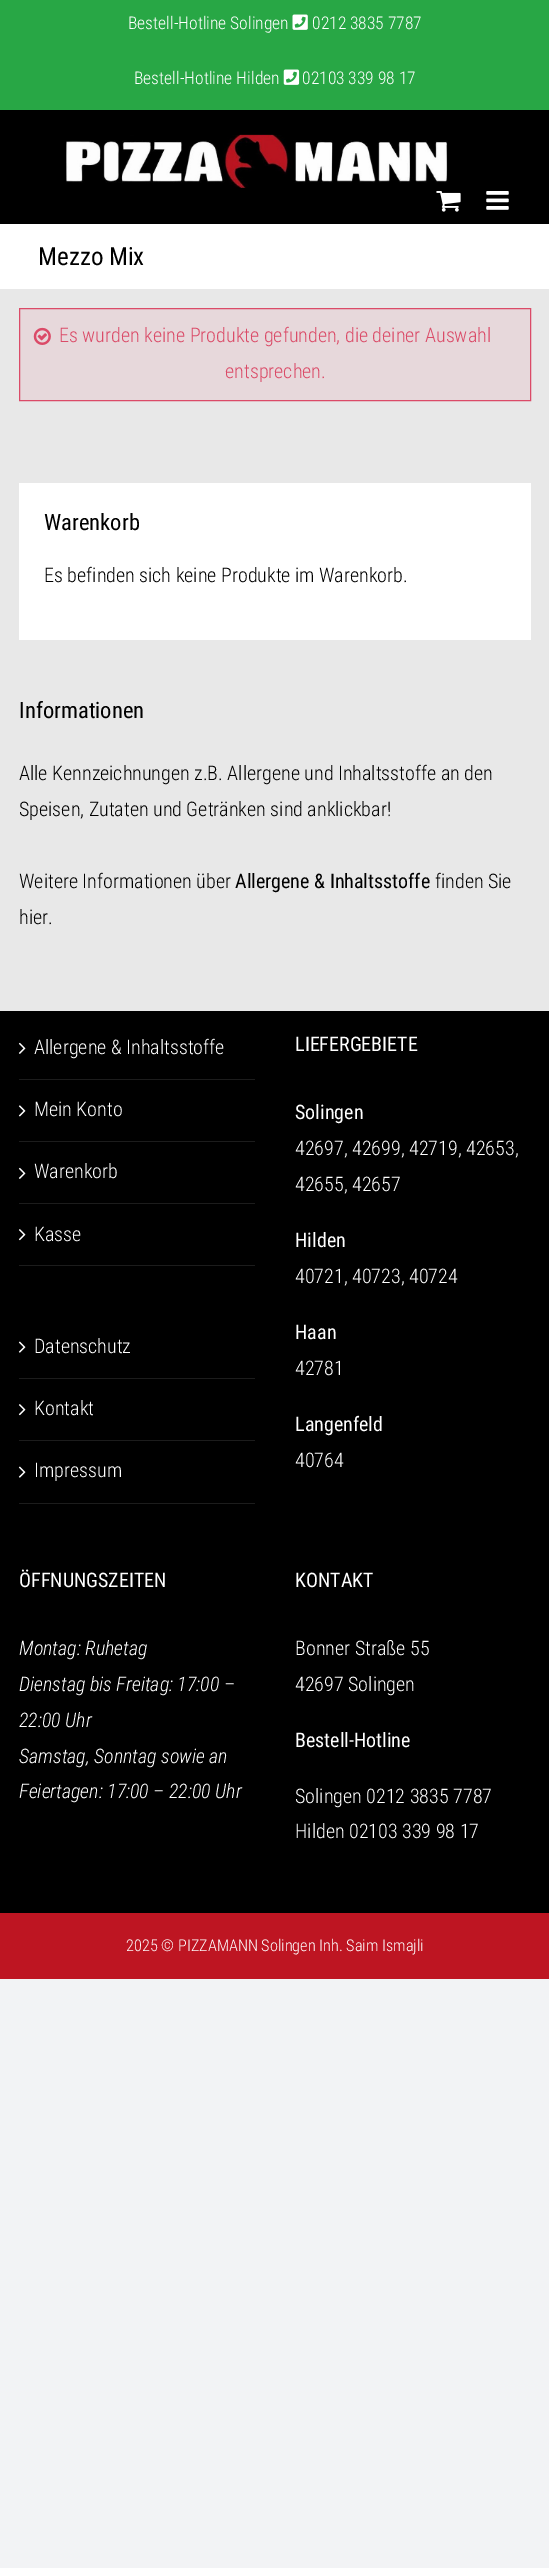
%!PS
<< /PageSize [549 2568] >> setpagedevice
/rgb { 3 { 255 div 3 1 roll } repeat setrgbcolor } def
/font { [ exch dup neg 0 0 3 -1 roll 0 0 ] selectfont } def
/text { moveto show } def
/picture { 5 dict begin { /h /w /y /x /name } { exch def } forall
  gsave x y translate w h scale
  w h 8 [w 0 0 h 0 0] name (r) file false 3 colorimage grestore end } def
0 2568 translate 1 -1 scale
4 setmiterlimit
242 243 245 rgb
0 0 549 2568 rectfill
232 232 232 rgb
0 289 549 722 rectfill
40 167 69 rgb
0 0 549 110 rectfill
(img_01.rgb) 292 14 16 16 picture
(img_02.rgb) 283 69 17 16 picture
0 0 0 rgb
0 110 549 114 rectfill
(img_03.rgb) 66 134 382 54 picture
(img_04.rgb) 436 191 25 21 picture
(img_05.rgb) 486 191 23 19 picture
255 255 255 rgb
0 224 549 65 rectfill
231 216 219 rgb
19.5 308.5 moveto 511 0 rlineto 0 92 rlineto -511 0 rlineto closepath gsave fill grestore
219 75 104 rgb
stroke
(img_06.rgb) 33 327 18 18 picture
255 255 255 rgb
19 483 512 157 rectfill
0 0 0 rgb
0 1011 549 902 rectfill
28 28 28 rgb
19 1079 236 1 rectfill
(img_07.rgb) 18 1042 8 12 picture
19 1141 236 1 rectfill
(img_08.rgb) 18 1105 8 12 picture
19 1203 236 1 rectfill
(img_07.rgb) 18 1167 8 12 picture
19 1265 236 1 rectfill
(img_09.rgb) 18 1229 8 12 picture
19 1378 236 1 rectfill
(img_10.rgb) 18 1341 8 12 picture
19 1440 236 1 rectfill
(img_09.rgb) 18 1404 8 12 picture
19 1503 236 1 rectfill
(img_10.rgb) 18 1466 8 12 picture
190 21 34 rgb
0 1913 549 66 rectfill
/RobotoCondensed-Light 17.5 font
255 255 255 rgb
(Bestell-Hotline Solingen) 128 29 text
(0212 3835 7787) 312 29 text
(Bestell-Hotline Hilden) 134 84 text
(02103 339 98 17) 302 84 text
/RobotoCondensed-Regular 25 font
0 0 0 rgb
(Mezzo Mix) 38 265 text
/RobotoCondensed-Light 20 font
219 75 104 rgb
(Es wurden keine Produkte gefunden, die deiner Auswahl) 59 342 text
(entsprechen.) 225 378 text
/RobotoCondensed-Regular 22.5 font
0 0 0 rgb
(Warenkorb) 44 530 text
/RobotoCondensed-Light 20 font
(Es befinden sich keine Produkte im Warenkorb.) 44 582 text
/RobotoCondensed-Regular 22.5 font
(Informationen) 19 718 text
/RobotoCondensed-Light 20 font
(Alle Kennzeichnungen z.B. Allergene und Inhaltsstoffe an den) 19 780 text
(Speisen, Zutaten und Getränken sind anklickbar!) 19 816 text
(Weitere Informationen über) 19 888 text
/RobotoCondensed-Regular 20 font
(Allergene & Inhaltsstoffe) 235 888 text
/RobotoCondensed-Light 20 font
(finden Sie) 435 888 text
(hier.) 19 924 text
255 255 255 rgb
(Allergene & Inhaltsstoffe) 34 1054 text
(Mein Konto) 34 1116 text
(Warenkorb) 34 1178 text
(Kasse) 34 1241 text
(Datenschutz) 34 1353 text
(Kontakt) 34 1415 text
(Impressum) 34 1477 text
/RobotoCondensed-Regular 20 font
(LIEFERGEBIETE) 295 1051 text
(Solingen) 295 1119 text
/RobotoCondensed-Light 20 font
(42697, 42699, 42719, 42653,) 295 1155 text
(42655, 42657) 295 1191 text
/RobotoCondensed-Regular 20 font
(Hilden) 295 1247 text
/RobotoCondensed-Light 20 font
(40721, 40723, 40724) 295 1283 text
/RobotoCondensed-Regular 20 font
(Haan) 295 1339 text
/RobotoCondensed-Light 20 font
(42781) 295 1375 text
/RobotoCondensed-Regular 20 font
(Langenfeld) 295 1431 text
/RobotoCondensed-Light 20 font
(40764) 295 1467 text
/RobotoCondensed-Regular 20 font
(ÖFFNUNGSZEITEN) 19 1587 text
/RobotoCondensed-LightItalic 20 font
(Montag: Ruhetag) 19 1655 text
(Dienstag bis Freitag: 17:00 –) 19 1691 text
(22:00 Uhr) 19 1727 text
(Samstag, Sonntag sowie an) 19 1763 text
(Feiertagen: 17:00 – 22:00 Uhr) 19 1798 text
/RobotoCondensed-Regular 20 font
(KONTAKT) 295 1587 text
/RobotoCondensed-Light 20 font
(Bonner Straße 55) 295 1655 text
(42697 Solingen) 295 1691 text
/RobotoCondensed-Regular 20 font
(Bestell-Hotline) 295 1747 text
/RobotoCondensed-Light 20 font
(Solingen 0212 3835 7787) 295 1803 text
(Hilden 02103 339 98 17) 295 1838 text
/RobotoCondensed-Light 16.25 font
(2025 © PIZZAMANN Solingen Inh. Saim Ismajli) 126 1951 text
showpage
